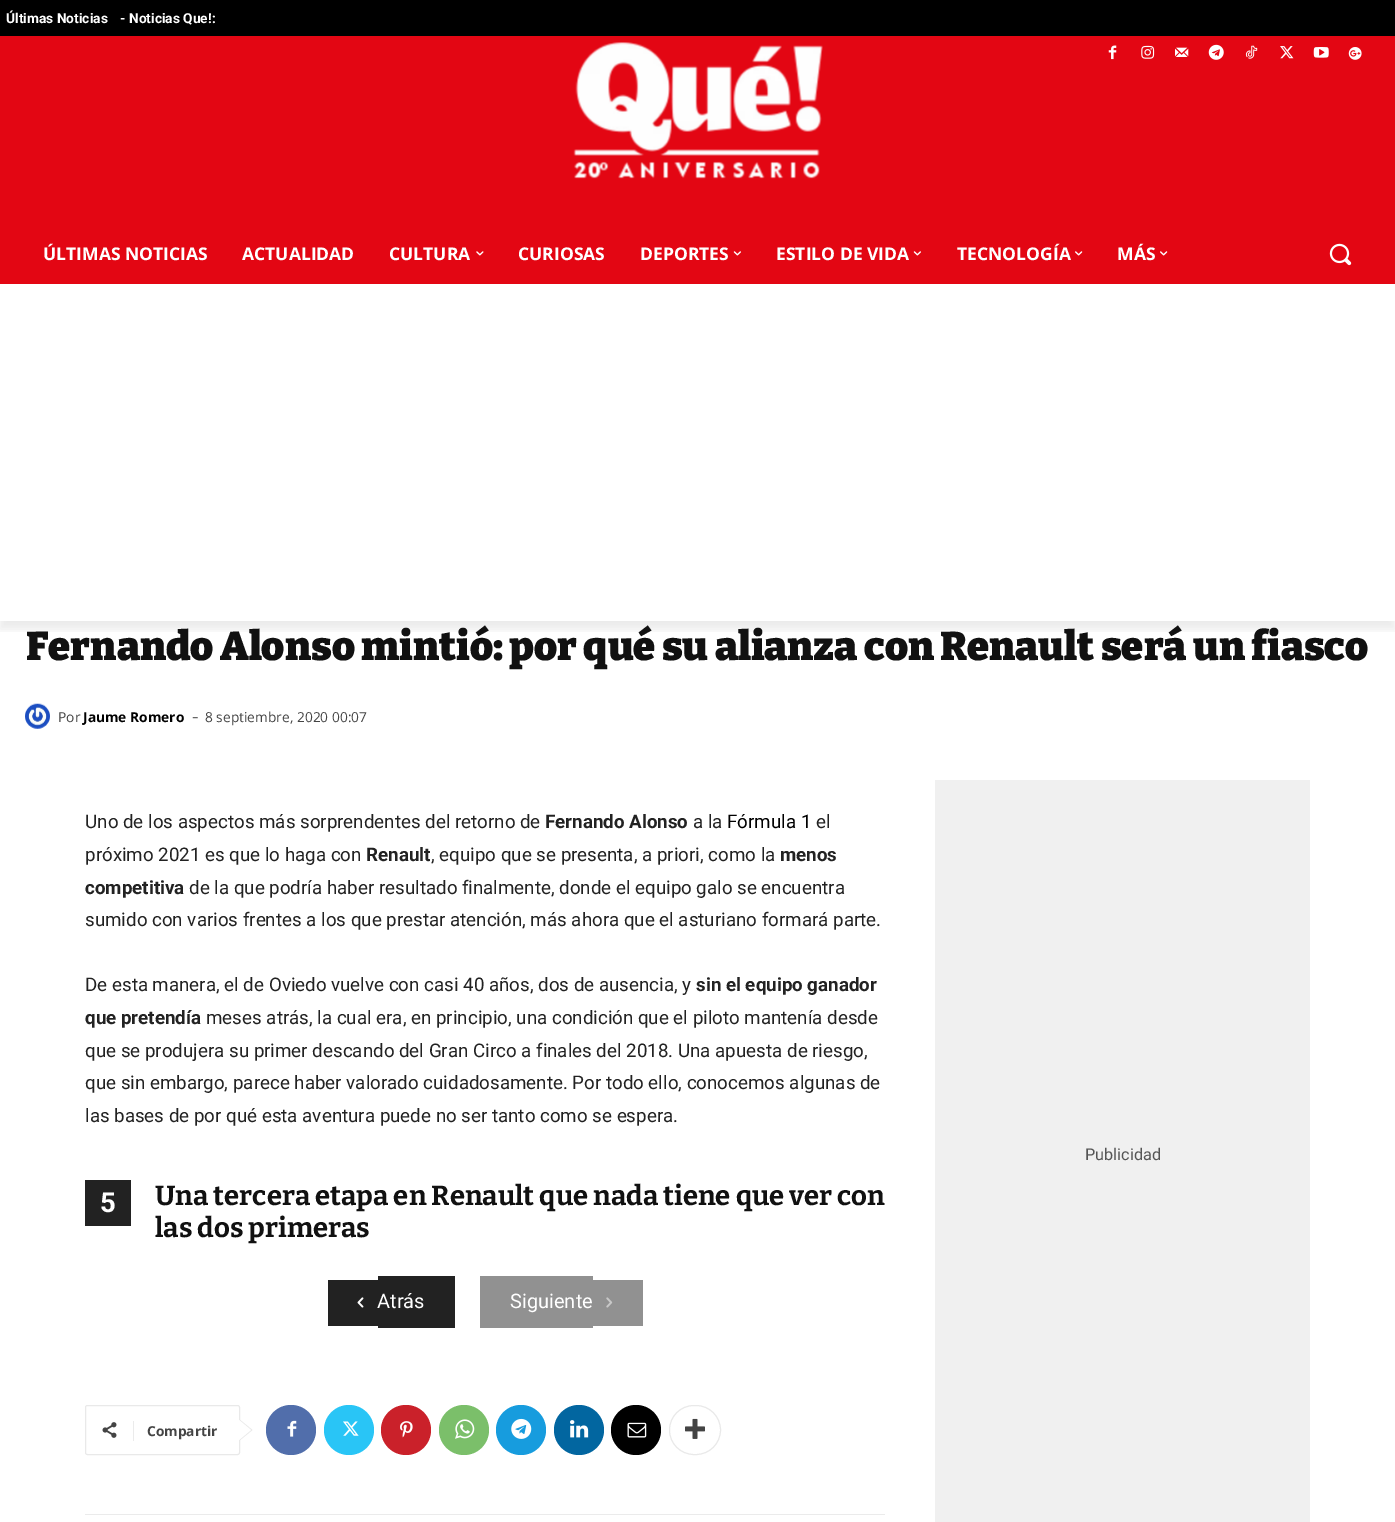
%!PS
<< /PageSize [1395 1522] /PageUsesTransparency true >> setpagedevice
/rgb { 3 { 255 div 3 1 roll } repeat setrgbcolor } def
/font { [ exch dup neg 0 0 3 -1 roll 0 0 ] selectfont } def
/text { moveto show } def
/alpha { dup .setfillconstantalpha .setstrokeconstantalpha } def
/circle { newpath 0 360 arc closepath } def
/roundrect { 5 dict begin { /r /h /w /y /x } { exch def } forall
  x r add y moveto x w add y 2 copy h add r arct x w add y h add x 1 index r arct
  x y h add x y r arct x y 2 copy exch w add exch r arct closepath end } def
/shadow { 12 dict begin { /a /b /q /h /w /y /x } { exch def } forall gsave /was 0 def
  9 -2 -9 { dup b mul 4 div /e exch def 1 sub .425 mul 2.718 exch exp 1 add a .99 .min exch div /now exch def
    1 1 now sub 1 was sub div sub alpha /was now def
    w h .min e 2 mul add 0 gt { x e sub y e sub w e 2 mul add h e 2 mul add
      q e add b .6 mul add w h .min 2 div e add .min 0 .max roundrect fill } if } for grestore end } def
/picture { 5 dict begin { /h /w /y /x /name } { exch def } forall
  gsave x y translate w h scale
  w h 8 [w 0 0 h 0 0] name (r) file false 3 colorimage grestore end } def
0 .pushpdf14devicefilter
0 1522 translate 1 -1 scale
4 setmiterlimit
255 255 255 rgb
0 0 1395 1522 rectfill
0 0 0 rgb
0 0 1395 36 rectfill
227 6 19 rgb
0 36 1395 248 rectfill
(img_01.rgb) 573 42 250 137 picture
(img_02.rgb) 1108 45 9 15 picture
(img_03.rgb) 1141 45 14 14 picture
(img_04.rgb) 1175 47 14 10 picture
(img_05.rgb) 1208 44 16 16 picture
(img_06.rgb) 1245 45 13 14 picture
(img_07.rgb) 1280 46 14 13 picture
(img_08.rgb) 1313 47 16 11 picture
(img_09.rgb) 1348 47 14 13 picture
gsave
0 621 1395 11 rectclip
0 0 0 rgb
0 8 1395 621 0 5 0.08 shadow
grestore
(img_10.rgb) 476 251 8 5 picture
(img_11.rgb) 733 251 8 5 picture
(img_11.rgb) 913 251 8 5 picture
(img_12.rgb) 1075 251 8 5 picture
(img_12.rgb) 1160 251 8 5 picture
(img_13.rgb) 1329 243 23 23 picture
(img_14.rgb) 25 703 25 26 picture
34 34 34 rgb
85 1180 46 46 rectfill
328 1280 50 46 rectfill
378 1276 77 52 rectfill
(img_15.rgb) 357 1297 7 11 picture
145 145 145 rgb
480 1276 113 52 rectfill
593 1280 50 46 rectfill
(img_16.rgb) 606 1297 7 11 picture
233 233 233 rgb
85.5 1405.5 154 49 2 roundrect stroke
239 1441 moveto 0 -22 rlineto 13.5 11 rlineto closepath fill
(img_17.rgb) 102 1422 15 16 picture
235 235 235 rgb
133 1421 1 20 rectfill
255 255 255 rgb
239 1440 moveto 0 -20 rlineto 12 10 rlineto closepath fill
81 110 171 rgb
291 1430 25 circle fill
(img_18.rgb) 287 1420 10 17 picture
41 197 246 rgb
349 1430 25 circle fill
(img_19.rgb) 343 1421 16 15 picture
202 33 42 rgb
406 1430 25 circle fill
(img_20.rgb) 400 1421 13 17 picture
123 191 106 rgb
464 1430 25 circle fill
(img_21.rgb) 455 1419 20 20 picture
23 156 222 rgb
521 1430 25 circle fill
(img_22.rgb) 511 1418 21 21 picture
2 102 160 rgb
579 1430 25 circle fill
(img_23.rgb) 570 1420 19 18 picture
0 0 0 rgb
636 1430 25 circle fill
(img_24.rgb) 627 1422 20 16 picture
233 233 233 rgb
669.5 1405.5 51 49 24.5 roundrect stroke
(img_25.rgb) 685 1418 20 21 picture
235 235 235 rgb
85 1514 800 1 rectfill
240 240 240 rgb
935 780 375 742 rectfill
/Roboto-Bold 13.75 font
255 255 255 rgb
(Últimas Noticias) 6 23 text
(- Noticias Que!:) 120 23 text
/OpenSans-Bold 17.5 font
(ÚLTIMAS NOTICIAS) 43 260 text
(ACTUALIDAD) 242 260 text
(CULTURA) 389 260 text
(CURIOSAS) 518 260 text
(DEPORTES) 640 260 text
(ESTILO DE VIDA) 776 260 text
(TECNOLOGÍA) 957 260 text
(MÁS) 1117 260 text
/Bitter-Thin 40 font
17 17 17 rgb
(Fernando Alonso mintió: por qué su alianza con Renault será un fiasco) 26 660 text
/OpenSans-Regular 13.75 font
68 68 68 rgb
(Por) 58 722 text
/OpenSans-Bold 13.75 font
0 0 0 rgb
(Jaume Romero) 83 722 text
/OpenSans-Regular 20 font
102 102 102 rgb
(-) 192 723 text
/OpenSans-Regular 13.75 font
68 68 68 rgb
(8 septiembre, 2020 00:07) 205 722 text
/Roboto-Regular 18.75 font
34 34 34 rgb
(Uno de los aspectos más sorprendentes del retorno de) 85 828 text
/Roboto-Bold 18.75 font
(Fernando Alonso) 545 828 text
/Roboto-Regular 18.75 font
(a la) 693 828 text
0 0 0 rgb
(Fórmula 1) 727 828 text
34 34 34 rgb
(el) 816 828 text
(próximo 2021 es que lo haga con) 85 861 text
/Roboto-Bold 18.75 font
(Renault) 366 861 text
/Roboto-Regular 18.75 font
(, equipo que se presenta, a priori, como la) 431 861 text
/Roboto-Bold 18.75 font
(menos) 780 861 text
(competitiva) 85 894 text
/Roboto-Regular 18.75 font
(de la que podría haber resultado finalmente, donde el equipo galo se encuentra) 189 894 text
(sumido con varios frentes a los que prestar atención, más ahora que el asturiano formará parte.) 85 926 text
(De esta manera, el de Oviedo vuelve con casi 40 años, dos de ausencia, y) 85 991 text
/Roboto-Bold 18.75 font
(sin el equipo ganador) 696 991 text
(que pretendía) 85 1024 text
/Roboto-Regular 18.75 font
(meses atrás, la cual era, en principio, una condición que el piloto mantenía desde) 206 1024 text
(que se produjera su primer descando del Gran Circo a finales del 2018. Una apuesta de riesgo,) 85 1057 text
(que sin embargo, parece haber valorado cuidadosamente. Por todo ello, conocemos algunas de) 85 1089 text
(las bases de por qué esta aventura puede no ser tanto como se espera.) 85 1122 text
/Roboto-Bold 27.5 font
255 255 255 rgb
(5) 100 1212 text
/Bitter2-Thin 27.5 font
17 17 17 rgb
(Una tercera etapa en Renault que nada tiene que ver con) 155 1205 text
(las dos primeras) 155 1237 text
/Roboto-Regular 20 font
255 255 255 rgb
(Atrás) 377 1308 text
(Siguiente) 510 1308 text
/OpenSans-Bold 13.75 font
68 68 68 rgb
(Compartir) 147 1436 text
/Roboto-Regular 16.25 font
85 85 85 rgb
(Publicidad) 1085 1160 text
.poppdf14devicefilter showpage
